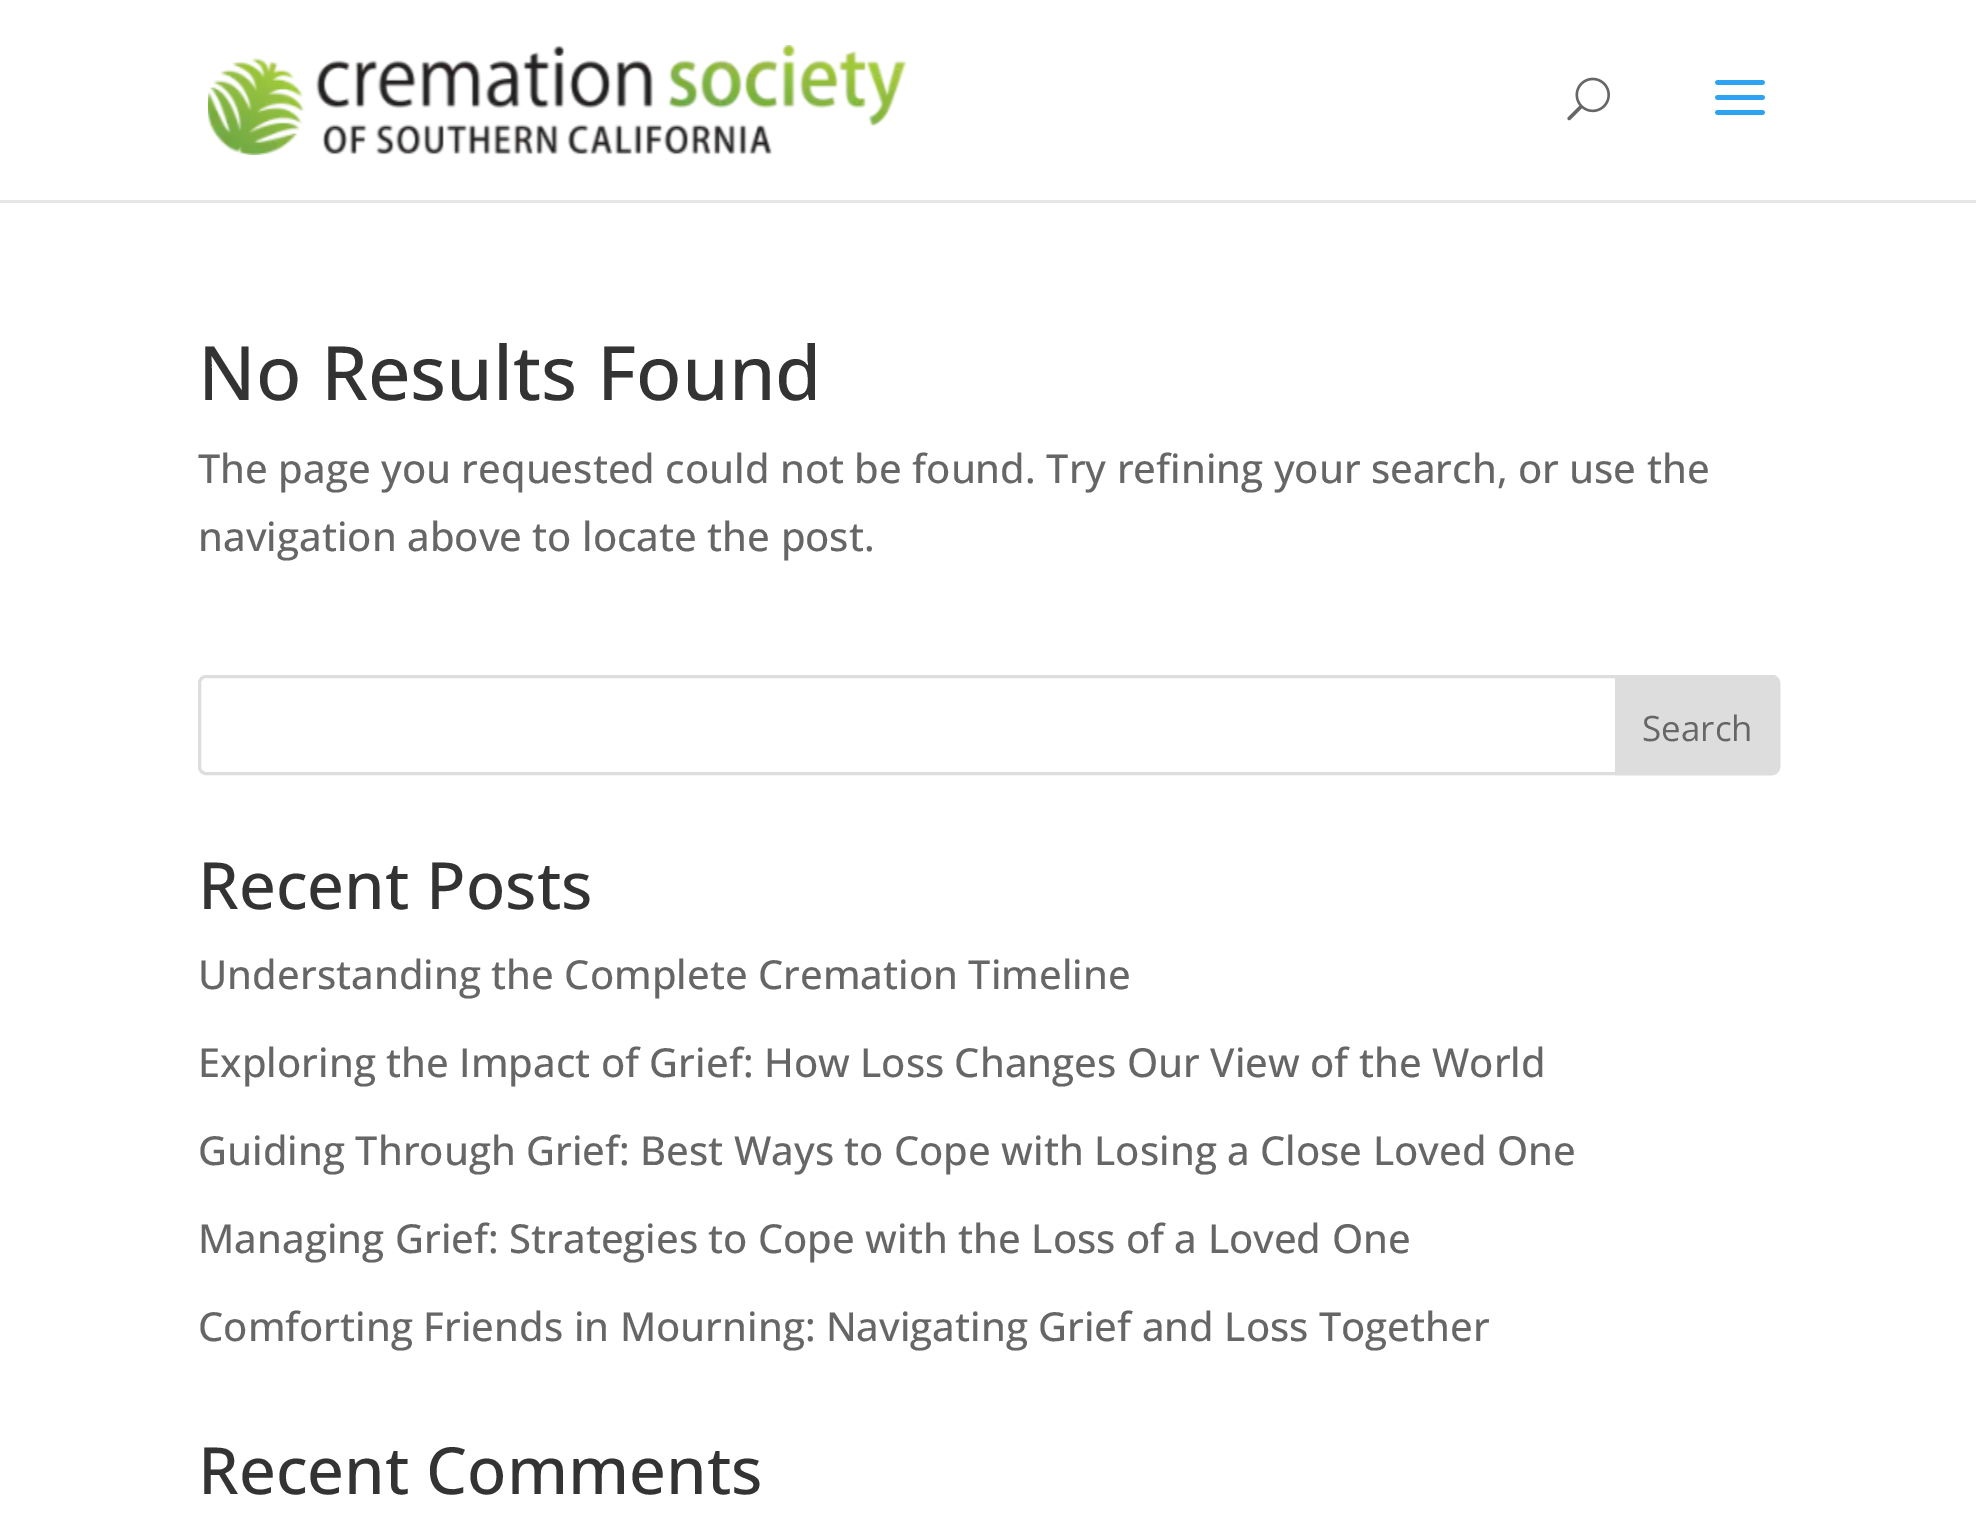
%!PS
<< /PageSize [1976 1525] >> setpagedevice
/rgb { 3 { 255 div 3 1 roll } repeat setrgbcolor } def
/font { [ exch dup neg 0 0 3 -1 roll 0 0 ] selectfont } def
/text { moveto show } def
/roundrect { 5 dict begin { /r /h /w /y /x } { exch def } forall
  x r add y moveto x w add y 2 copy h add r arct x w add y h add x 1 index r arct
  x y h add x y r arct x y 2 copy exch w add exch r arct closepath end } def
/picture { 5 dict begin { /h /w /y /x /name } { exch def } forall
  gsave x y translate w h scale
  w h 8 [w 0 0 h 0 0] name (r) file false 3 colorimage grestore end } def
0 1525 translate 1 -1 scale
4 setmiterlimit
255 255 255 rgb
0 0 1976 1525 rectfill
230 230 230 rgb
0 200 moveto 0 3 rlineto 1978 0 rlineto 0 -200 rlineto 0 197 rlineto closepath fill
(img_01.rgb) 208 45 698 110 picture
(img_02.rgb) 1567 77 43 44 picture
(img_03.rgb) 1715 80 50 35 picture
221 221 221 rgb
3 setlinewidth
199.5 676.5 1579 97 6.5 roundrect stroke
1616.5 676.5 moveto 155.5 0 rlineto 3.5 0 6.5 3 6.5 6.5 rcurveto 0 84 rlineto 0 3.5 -3 6.5 -6.5 6.5 rcurveto -155.5 0 rlineto closepath gsave fill grestore
stroke
/OpenSans-Medium 75 font
51 51 51 rgb
(No Results Found) 198 400 text
/OpenSans-Medium 40 font
102 102 102 rgb
(The page you requested could not be found. Try refining your search, or use the) 198 483 text
(navigation above to locate the post.) 198 551 text
/OpenSans-Regular 35 font
(Search) 1642 741 text
/OpenSans-Medium 65 font
51 51 51 rgb
(Recent Posts) 198 909 text
/OpenSans-Medium 40 font
102 102 102 rgb
(Understanding the Complete Cremation Timeline) 198 989 text
(Exploring the Impact of Grief: How Loss Changes Our View of the World) 198 1077 text
(Guiding Through Grief: Best Ways to Cope with Losing a Close Loved One) 198 1165 text
(Managing Grief: Strategies to Cope with the Loss of a Loved One) 198 1253 text
(Comforting Friends in Mourning: Navigating Grief and Loss Together) 198 1341 text
/OpenSans-Medium 65 font
51 51 51 rgb
(Recent Comments) 198 1494 text
showpage
